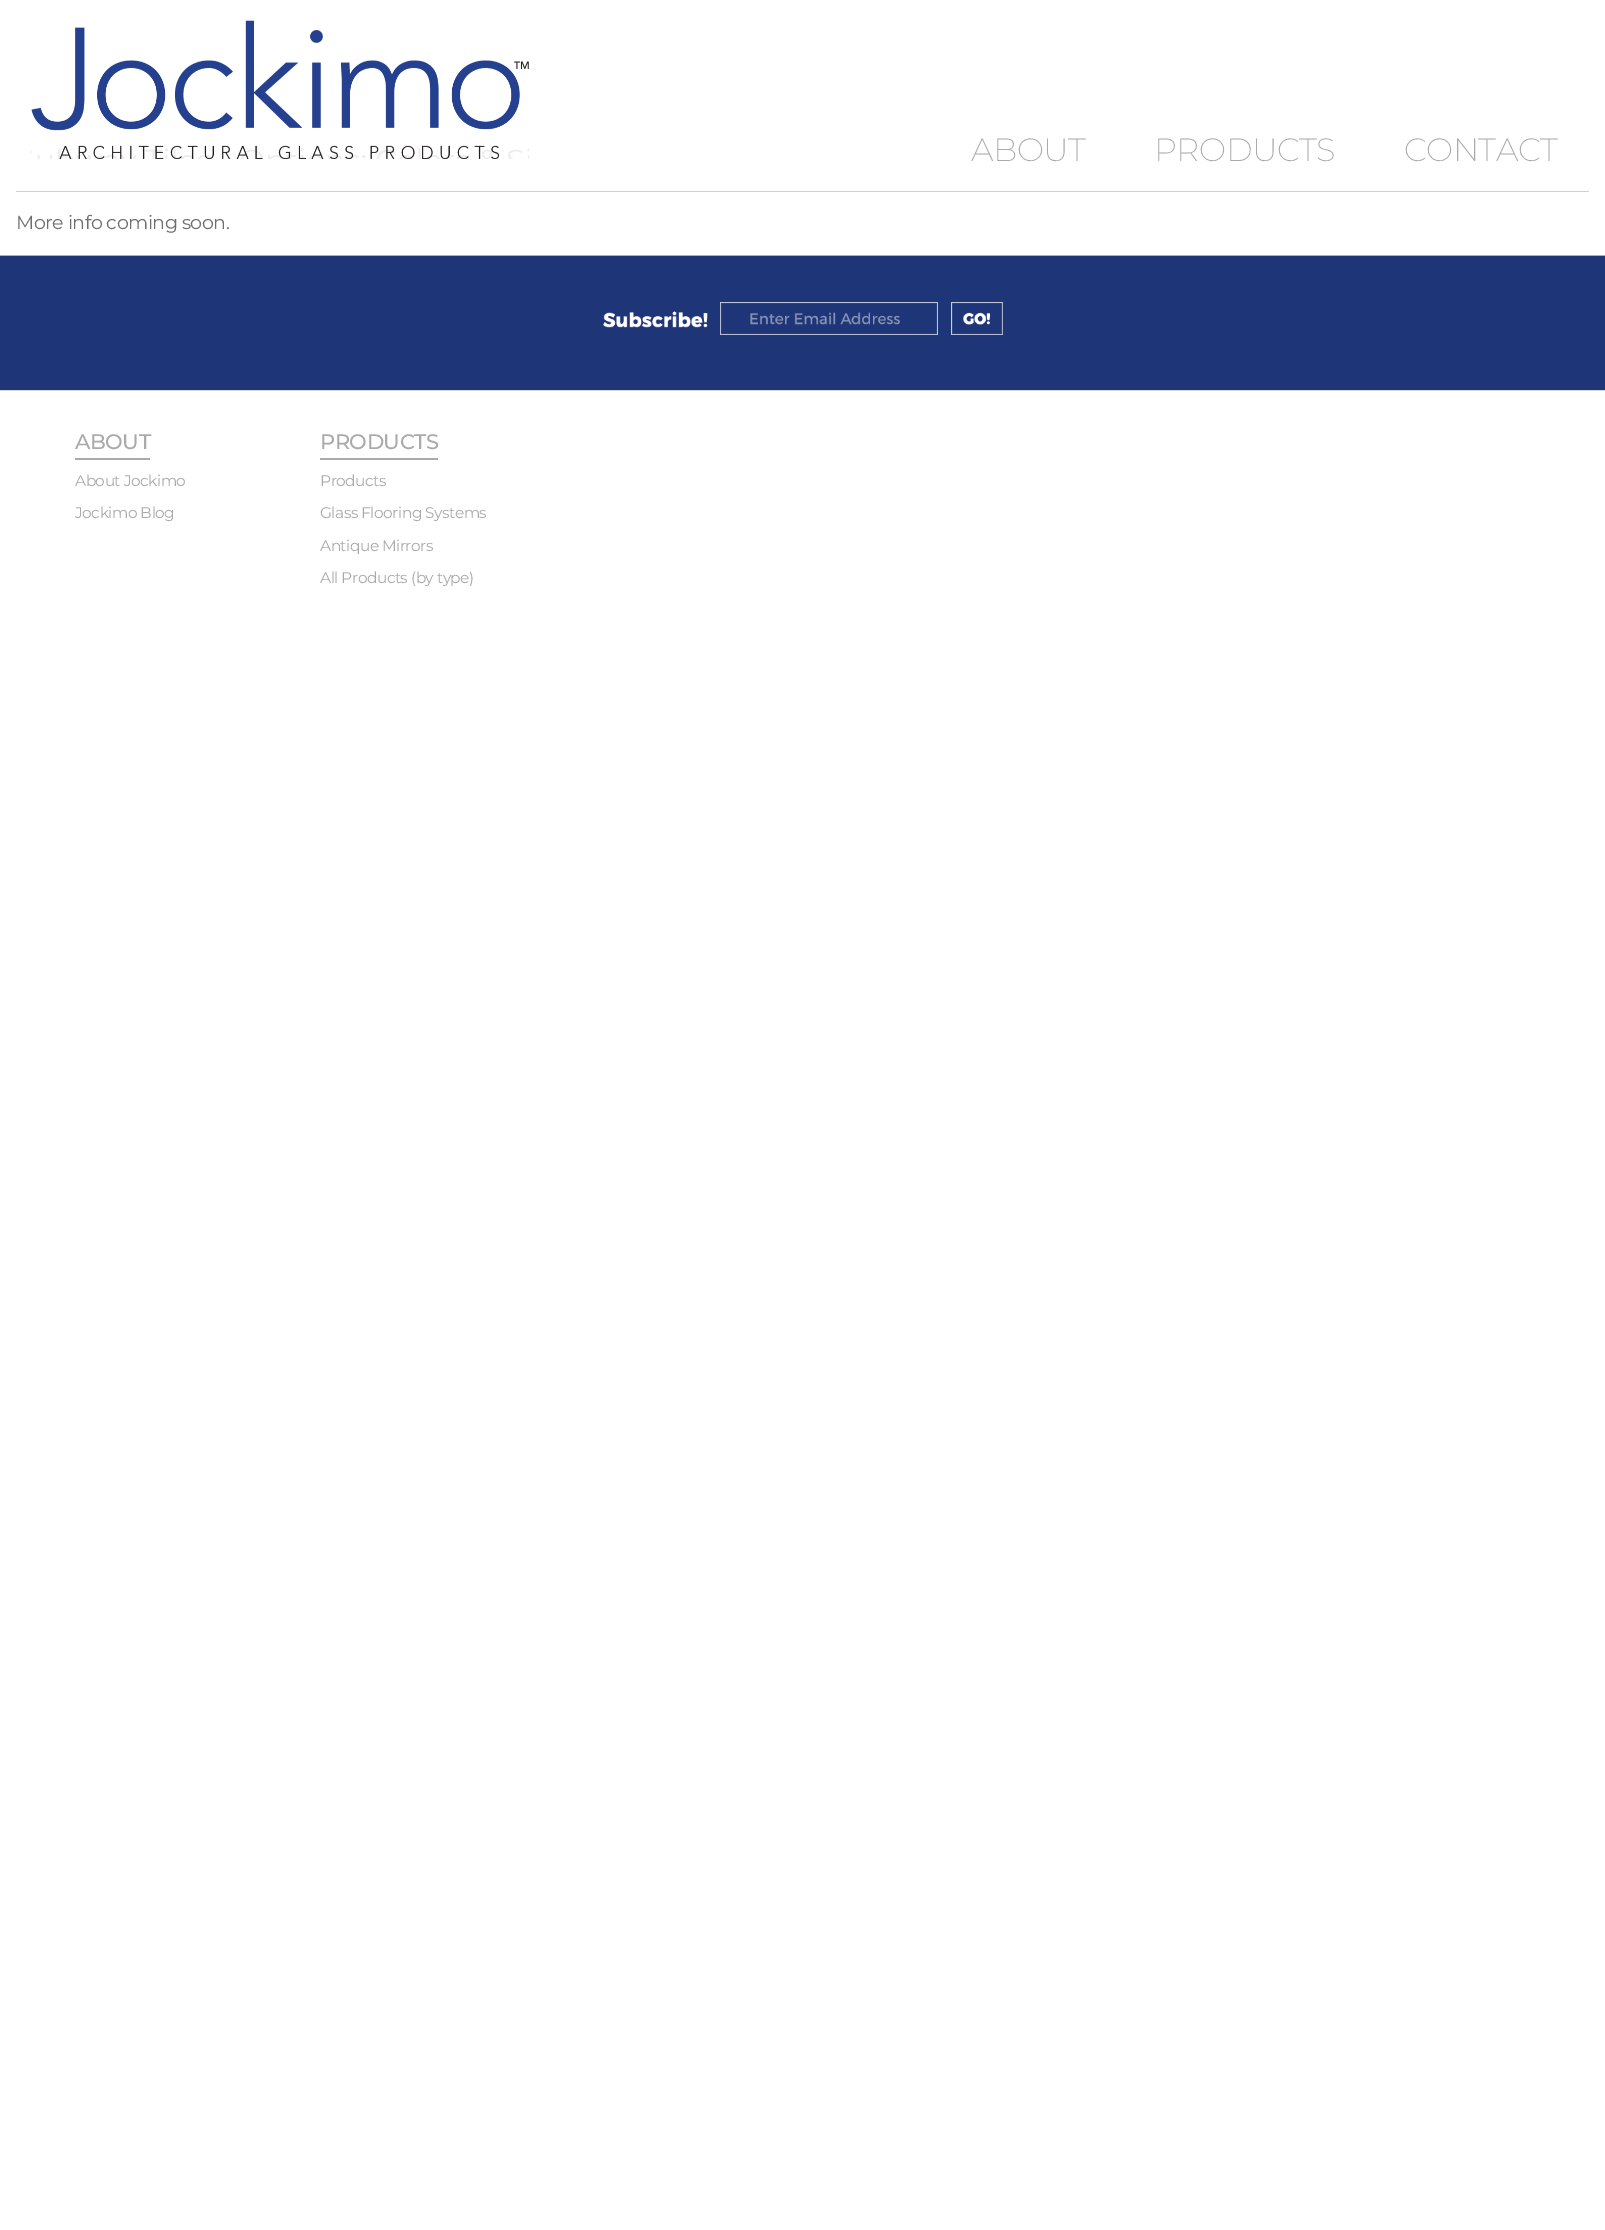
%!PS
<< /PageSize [1605 2230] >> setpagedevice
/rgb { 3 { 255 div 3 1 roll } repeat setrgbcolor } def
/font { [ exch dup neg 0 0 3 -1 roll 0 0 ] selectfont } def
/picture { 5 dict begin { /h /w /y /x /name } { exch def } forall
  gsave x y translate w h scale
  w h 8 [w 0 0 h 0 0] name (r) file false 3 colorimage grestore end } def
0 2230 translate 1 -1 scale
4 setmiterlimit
255 255 255 rgb
0 0 1605 2230 rectfill
(img_01.rgb) 31 20 498 139 picture
209 209 209 rgb
16 191 1573 1 rectfill
30 53 119 rgb
0 256 1605 134 rectfill
175 175 175 rgb
0 255 1605 1 rectfill
(img_02.rgb) 603 302 400 33 picture
213 213 213 rgb
0 390 1605 1 rectfill
170 170 170 rgb
75 458 75 2 rectfill
320 458 118 2 rectfill
/Montserrat-ExtraLight 32.25 font
971 161 moveto -0.5 0 (ABOUT) ashow
1154 161 moveto -0.5 0 (PRODUCTS) ashow
1404 161 moveto -0.5 0 (CONTACT) ashow
/Montserrat-Regular 19 font
110 110 110 rgb
16 229 moveto -0.5 0 (More info coming soon.) ashow
/Montserrat-Medium 21 font
170 170 170 rgb
75 449 moveto -0.5 0 (ABOUT) ashow
/Montserrat-Regular 15.4 font
75 486 moveto -0.5 0 (About Jockimo) ashow
75 518 moveto -0.5 0 (Jockimo Blog) ashow
/Montserrat-Medium 21 font
320 449 moveto -0.5 0 (PRODUCTS) ashow
/Montserrat-Regular 15.4 font
320 486 moveto -0.5 0 (Products) ashow
320 518 moveto -0.5 0 (Glass Flooring Systems) ashow
320 551 moveto -0.5 0 (Antique Mirrors) ashow
320 583 moveto -0.5 0 (All Products \(by type\)) ashow
showpage
